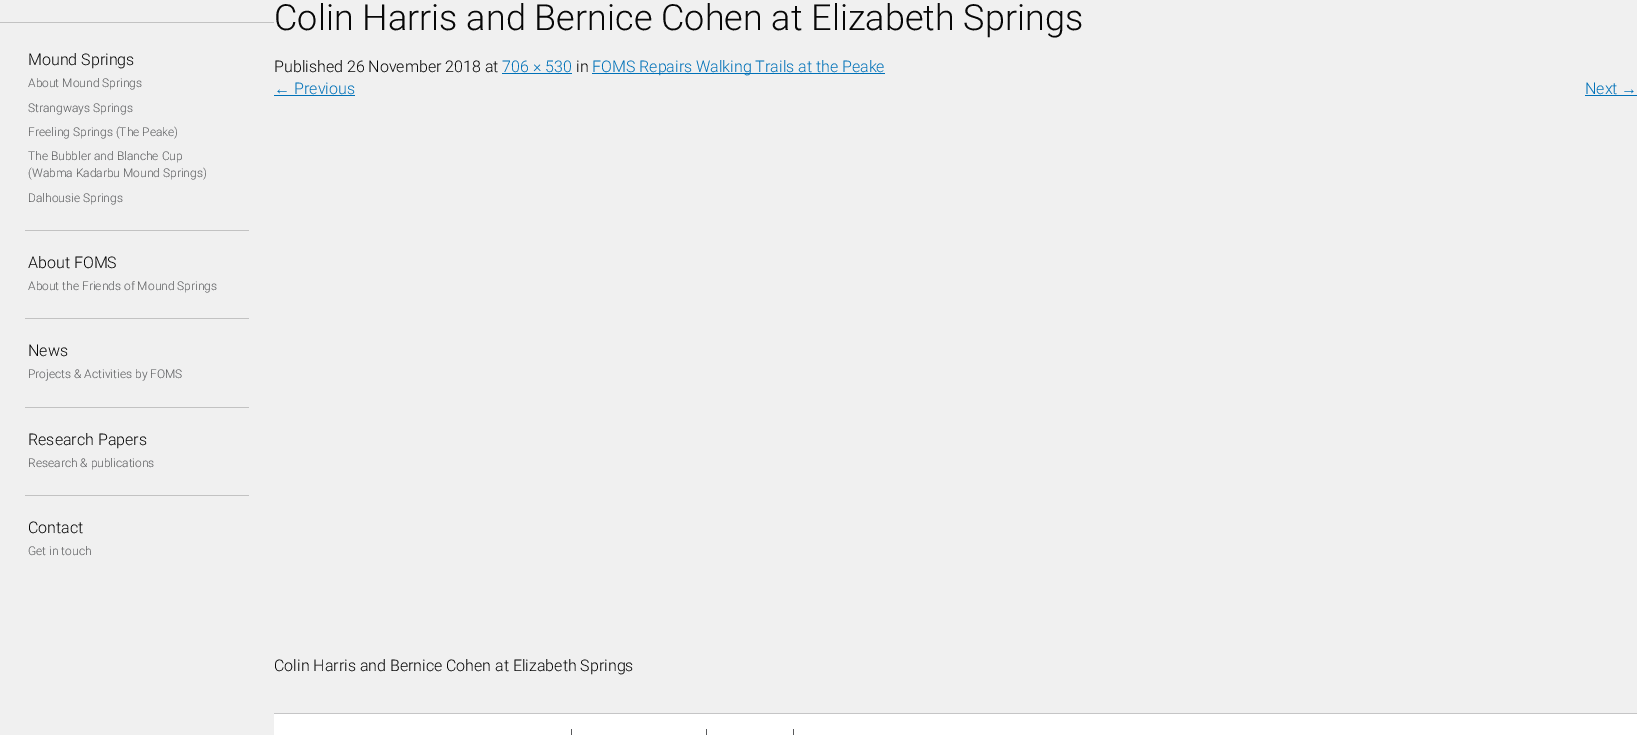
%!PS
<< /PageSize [1637 735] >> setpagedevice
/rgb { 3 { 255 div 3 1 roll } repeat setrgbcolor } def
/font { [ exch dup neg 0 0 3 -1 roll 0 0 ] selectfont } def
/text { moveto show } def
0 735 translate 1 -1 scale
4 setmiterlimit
240 240 240 rgb
0 0 1637 735 rectfill
194 194 194 rgb
0 22 274 1 rectfill
25 230 224 1 rectfill
25 318 224 1 rectfill
25 407 224 1 rectfill
25 495 224 1 rectfill
0 113 184 rgb
502 73 70 1 rectfill
592 73 293 1 rectfill
274 95 81 1 rectfill
1585 95 52 1 rectfill
255 255 255 rgb
274 714 1363 21 rectfill
197 197 198 rgb
274 713 1363 1 rectfill
88 89 91 rgb
571 729 1 6 rectfill
706 729 1 6 rectfill
793 729 1 6 rectfill
/Roboto-Light 16 font
7 7 7 rgb
(Mound Springs) 28 65 text
/Roboto-Light 12 font
88 89 91 rgb
(About Mound Springs) 28 87 text
(Strangways Springs) 28 112 text
(Freeling Springs \(The Peake\)) 28 136 text
(The Bubbler and Blanche Cup) 28 160 text
(\(Wabma Kadarbu Mound Springs\)) 28 177 text
(Dalhousie Springs) 28 202 text
/Roboto-Light 16 font
7 7 7 rgb
(About FOMS) 28 268 text
/Roboto-Light 12 font
88 89 91 rgb
(About the Friends of Mound Springs) 28 290 text
/Roboto-Light 16 font
7 7 7 rgb
(News) 28 356 text
/Roboto-Light 12 font
88 89 91 rgb
(Projects & Activities by FOMS) 28 378 text
/Roboto-Light 16 font
7 7 7 rgb
(Research Papers) 28 445 text
/Roboto-Light 12 font
88 89 91 rgb
(Research & publications) 28 467 text
/Roboto-Light 16 font
7 7 7 rgb
(Contact) 28 533 text
/Roboto-Light 12 font
88 89 91 rgb
(Get in touch) 28 555 text
/Roboto-Light 36 font
7 7 7 rgb
(Colin Harris and Bernice Cohen at Elizabeth Springs) 274 30 text
/Roboto-Light 16 font
(Published 26 November 2018 at) 274 72 text
0 113 184 rgb
(706 × 530) 502 72 text
7 7 7 rgb
(in) 576 72 text
0 113 184 rgb
(FOMS Repairs Walking Trails at the Peake) 592 72 text
/LiberationSans-Regular 16 font
(←) 274 94 text
/Roboto-Light 16 font
(Previous) 294 94 text
(Next) 1585 94 text
/LiberationSans-Regular 16 font
(→) 1621 94 text
/Roboto-Light 16 font
7 7 7 rgb
(Colin Harris and Bernice Cohen at Elizabeth Springs) 274 671 text
showpage
